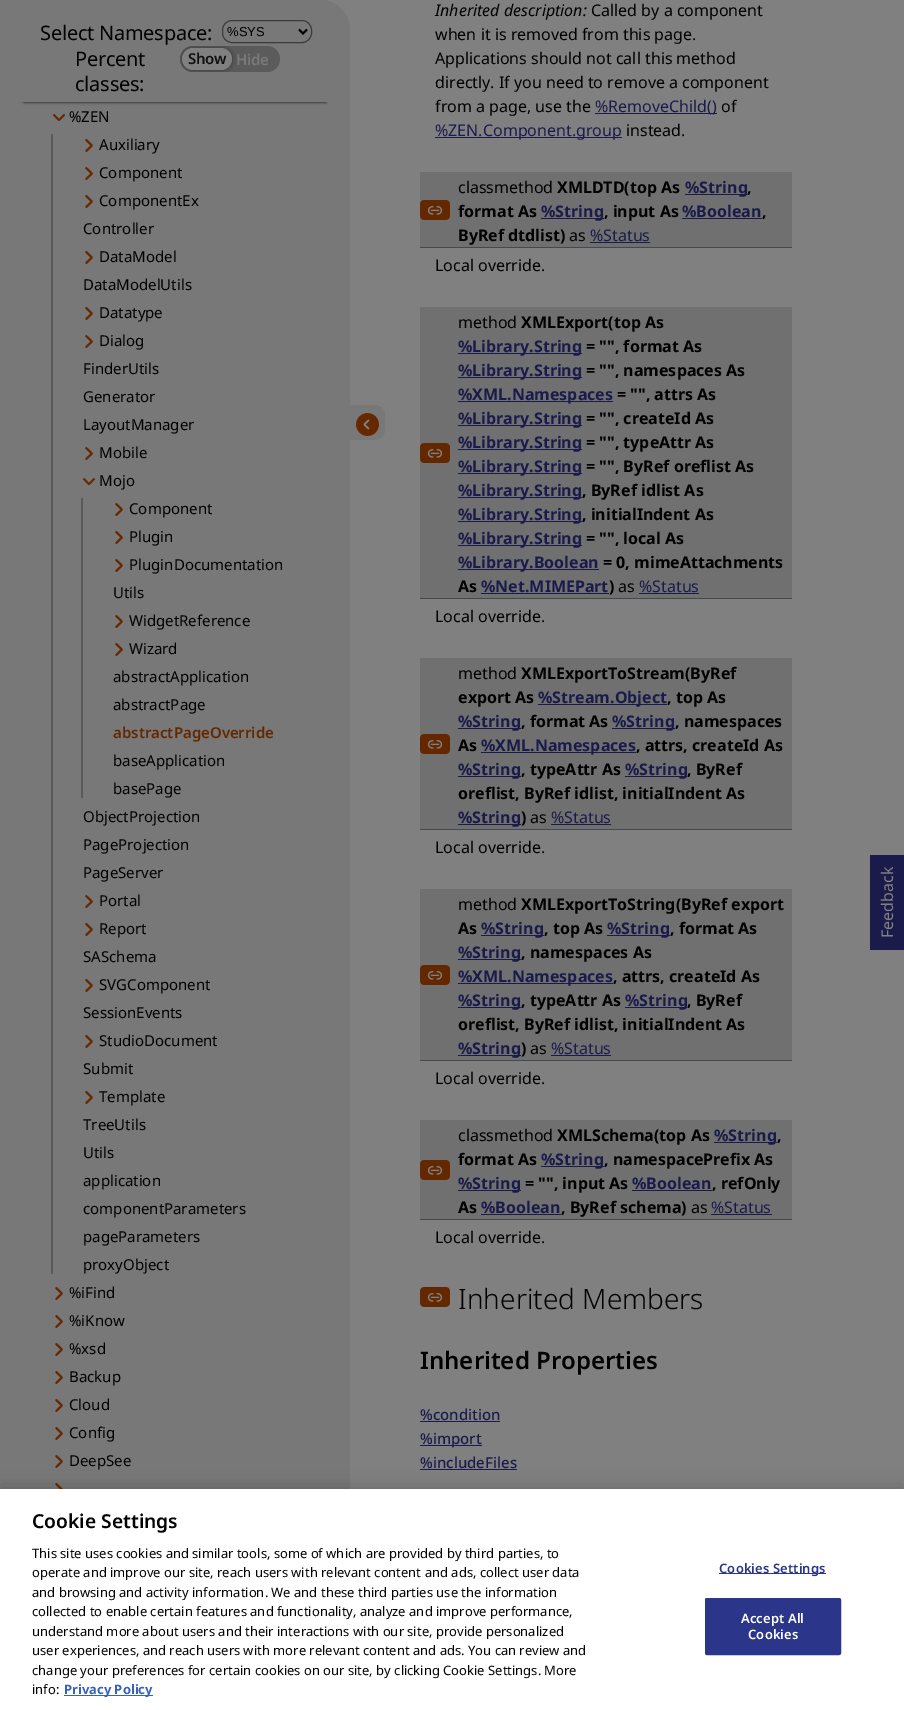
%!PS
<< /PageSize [904 1710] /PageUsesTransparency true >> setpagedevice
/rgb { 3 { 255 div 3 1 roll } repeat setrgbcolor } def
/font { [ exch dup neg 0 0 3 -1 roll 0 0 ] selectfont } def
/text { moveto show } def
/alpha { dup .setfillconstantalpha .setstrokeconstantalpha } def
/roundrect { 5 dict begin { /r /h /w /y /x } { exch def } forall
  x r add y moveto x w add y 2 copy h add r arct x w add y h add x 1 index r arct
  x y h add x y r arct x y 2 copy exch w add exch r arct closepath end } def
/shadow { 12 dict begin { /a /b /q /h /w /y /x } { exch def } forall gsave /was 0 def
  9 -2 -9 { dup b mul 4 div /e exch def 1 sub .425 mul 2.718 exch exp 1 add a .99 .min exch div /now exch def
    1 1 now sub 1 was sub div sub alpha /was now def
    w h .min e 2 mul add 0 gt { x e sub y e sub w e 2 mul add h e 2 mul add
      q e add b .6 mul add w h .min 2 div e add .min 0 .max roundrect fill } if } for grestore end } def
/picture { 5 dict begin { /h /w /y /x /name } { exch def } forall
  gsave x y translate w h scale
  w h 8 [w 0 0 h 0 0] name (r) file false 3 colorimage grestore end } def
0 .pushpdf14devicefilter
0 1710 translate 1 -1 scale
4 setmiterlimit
128 128 128 rgb
0 0 904 1710 rectfill
120 120 121 rgb
0 0 moveto 320 0 rlineto 16.5 0 30 13.5 30 30 rcurveto 0 1680 rlineto -350 0 rlineto closepath fill
11 11 11 rgb
24 48 302 54 0 1.5 1 shadow
120 120 121 rgb
0 0 moveto 320 0 rlineto 16.5 0 30 13.5 30 30 rcurveto 0 72 rlineto -350 0 rlineto closepath fill
59 59 59 rgb
222.5 20.5 89 22 9.5 roundrect stroke
0 0 0 rgb
2 setlinewidth
299 29.5 moveto 4 4 rlineto 4 -4 rlineto stroke
91 91 91 rgb
180 46 100 26 13 roundrect fill
gsave
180 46 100 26 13 roundrect clip newpath
9 9 9 rgb
184 50 46 18 9 3 1 shadow
grestore
128 128 128 rgb
182 48 50 22 11 roundrect fill
(img_01.rgb) 53 114 12 7 picture
90 90 90 rgb
51 134 2 1140 rectfill
(img_02.rgb) 85 139 8 13 picture
(img_02.rgb) 85 167 8 13 picture
(img_02.rgb) 85 195 8 13 picture
(img_02.rgb) 85 251 8 13 picture
(img_02.rgb) 85 307 8 13 picture
(img_02.rgb) 85 335 8 13 picture
(img_02.rgb) 85 447 8 13 picture
(img_01.rgb) 83 478 12 7 picture
81 498 2 300 rectfill
(img_02.rgb) 115 503 8 13 picture
(img_02.rgb) 115 531 8 13 picture
(img_02.rgb) 115 559 8 13 picture
(img_02.rgb) 115 615 8 13 picture
(img_02.rgb) 115 643 8 13 picture
(img_02.rgb) 85 895 8 13 picture
(img_02.rgb) 85 923 8 13 picture
(img_02.rgb) 85 979 8 13 picture
(img_02.rgb) 85 1035 8 13 picture
(img_02.rgb) 85 1091 8 13 picture
(img_02.rgb) 55 1287 8 13 picture
(img_02.rgb) 55 1315 8 13 picture
(img_02.rgb) 55 1343 8 13 picture
(img_02.rgb) 55 1371 8 13 picture
(img_02.rgb) 55 1399 8 13 picture
(img_02.rgb) 55 1427 8 13 picture
(img_02.rgb) 55 1455 8 13 picture
(img_03.rgb) 55 1483 8 6 picture
120 120 120 rgb
350 405 moveto 25 0 rlineto 5.5 0 10 4.5 10 10 rcurveto 0 15 rlineto 0 5.5 -4.5 10 -10 10 rcurveto -25 0 rlineto closepath fill
(img_04.rgb) 356 413 23 23 picture
26 27 75 rgb
595 113 122 1 rectfill
435 137 187 1 rectfill
112 112 112 rgb
420 172 372 75 rectfill
67 74 79 rgb
420 247 372 1 rectfill
(img_05.rgb) 420 200 30 20 picture
26 27 75 rgb
685 194 62 1 rectfill
541 218 63 1 rectfill
682 218 80 1 rectfill
590 242 60 1 rectfill
112 112 112 rgb
420 307 372 291 rectfill
67 74 79 rgb
420 598 372 1 rectfill
(img_05.rgb) 420 443 30 20 picture
26 27 75 rgb
458 353 124 1 rectfill
458 377 124 1 rectfill
458 401 155 1 rectfill
458 425 124 1 rectfill
458 449 124 1 rectfill
458 473 124 1 rectfill
458 497 124 1 rectfill
458 521 124 1 rectfill
458 545 124 1 rectfill
458 569 141 1 rectfill
481 593 128 1 rectfill
639 593 60 1 rectfill
112 112 112 rgb
420 658 372 171 rectfill
67 74 79 rgb
420 829 372 1 rectfill
(img_05.rgb) 420 734 30 20 picture
26 27 75 rgb
538 704 129 1 rectfill
458 728 63 1 rectfill
612 728 63 1 rectfill
481 752 155 1 rectfill
458 776 63 1 rectfill
625 776 62 1 rectfill
458 824 63 1 rectfill
551 824 60 1 rectfill
112 112 112 rgb
420 889 372 171 rectfill
67 74 79 rgb
420 1060 372 1 rectfill
(img_05.rgb) 420 965 30 20 picture
26 27 75 rgb
481 935 63 1 rectfill
607 935 63 1 rectfill
458 959 63 1 rectfill
458 983 155 1 rectfill
458 1007 63 1 rectfill
625 1007 62 1 rectfill
458 1055 63 1 rectfill
551 1055 60 1 rectfill
112 112 112 rgb
420 1120 372 99 rectfill
67 74 79 rgb
420 1219 372 1 rectfill
(img_05.rgb) 420 1160 30 20 picture
26 27 75 rgb
714 1142 63 1 rectfill
541 1166 63 1 rectfill
458 1190 63 1 rectfill
632 1190 80 1 rectfill
481 1214 80 1 rectfill
711 1214 61 1 rectfill
(img_06.rgb) 420 1287 30 20 picture
420 1421 80 1 rectfill
420 1445 62 1 rectfill
420 1469 97 1 rectfill
870 855 34 95 rectfill
0 0 0 rgb
0 1489 904 221 0 9 0.2 shadow
255 255 255 rgb
0 1489 904 221 rectfill
56 96 190 rgb
64 1695 89 1 rectfill
43 53 137 rgb
719 1573 107 1 rectfill
705.5 1598.5 135 56 1.5 roundrect gsave fill grestore
1 setlinewidth
stroke
/NotoSans-Regular 20 font
0 0 0 rgb
40 40 moveto -0.25 0 (Select Namespace:) ashow
/LiberationSans-Regular 13 font
(%SYS) 227 36 text
/NotoSans-Regular 20 font
75 66 moveto -0.25 0 (Percent) ashow
/NotoSans-SemiBold 15 font
17 17 17 rgb
188 64 moveto -0.25 0 (Show) ashow
121 121 121 rgb
236 65 moveto -0.25 0 (Hide) ashow
/NotoSans-Regular 20 font
0 0 0 rgb
75 91 moveto -0.25 0 (classes:) ashow
/NotoSans-Regular 15 font
(%ZEN) 69 122 text
(Auxiliary) 99 150 text
(Component) 99 178 text
(ComponentEx) 99 206 text
(Controller) 83 234 text
(DataModel) 99 262 text
(DataModelUtils) 83 290 text
(Datatype) 99 318 text
(Dialog) 99 346 text
(FinderUtils) 83 374 text
(Generator) 83 402 text
(LayoutManager) 83 430 text
(Mobile) 99 458 text
(Mojo) 99 486 text
(Component) 129 514 text
(Plugin) 129 542 text
(PluginDocumentation) 129 570 text
(Utils) 113 598 text
(WidgetReference) 129 626 text
(Wizard) 129 654 text
(abstractApplication) 113 682 text
(abstractPage) 113 710 text
/NotoSans-SemiBold 15 font
100 40 0 rgb
(abstractPageOverride) 113 738 text
/NotoSans-Regular 15 font
0 0 0 rgb
(baseApplication) 113 766 text
(basePage) 113 794 text
(ObjectProjection) 83 822 text
(PageProjection) 83 850 text
(PageServer) 83 878 text
(Portal) 99 906 text
(Report) 99 934 text
(SASchema) 83 962 text
(SVGComponent) 99 990 text
(SessionEvents) 83 1018 text
(StudioDocument) 99 1046 text
(Submit) 83 1074 text
(Template) 99 1102 text
(TreeUtils) 83 1130 text
(Utils) 83 1158 text
(application) 83 1186 text
(componentParameters) 83 1214 text
(pageParameters) 83 1242 text
(proxyObject) 83 1270 text
(%iFind) 69 1298 text
(%iKnow) 69 1326 text
(%xsd) 69 1354 text
(Backup) 69 1382 text
(Cloud) 69 1410 text
(Config) 69 1438 text
(DeepSee) 69 1466 text
/NotoSans-Italic 16 font
(Inherited description:) 435 16 text
/NotoSans-Regular 16 font
(Called by a component) 591 16 text
(when it is removed from this page.) 435 40 text
(Applications should not call this method) 435 64 text
(directly. If you need to remove a component) 435 88 text
(from a page, use the) 435 112 text
26 27 75 rgb
(%RemoveChild\(\)) 595 112 text
0 0 0 rgb
(of) 721 112 text
26 27 75 rgb
(%ZEN.Component.group) 435 136 text
0 0 0 rgb
(instead.) 626 136 text
(classmethod) 458 193 text
/NotoSans-Bold 16 font
(XMLDTD\(top As) 557 193 text
26 27 75 rgb
(%String) 685 193 text
0 0 0 rgb
(,) 747 193 text
(format As) 458 217 text
26 27 75 rgb
(%String) 541 217 text
0 0 0 rgb
(, input As) 604 217 text
26 27 75 rgb
(%Boolean) 682 217 text
0 0 0 rgb
(,) 762 217 text
(ByRef dtdlist\)) 458 241 text
/NotoSans-Regular 16 font
(as) 569 241 text
26 27 75 rgb
(%Status) 590 241 text
0 0 0 rgb
(Local override.) 435 271 text
(method) 458 328 text
/NotoSans-Bold 16 font
(XMLExport\(top As) 521 328 text
26 27 75 rgb
(%Library.String) 458 352 text
0 0 0 rgb
(= "", format As) 586 352 text
26 27 75 rgb
(%Library.String) 458 376 text
0 0 0 rgb
(= "", namespaces As) 586 376 text
26 27 75 rgb
(%XML.Namespaces) 458 400 text
0 0 0 rgb
(= "", attrs As) 617 400 text
26 27 75 rgb
(%Library.String) 458 424 text
0 0 0 rgb
(= "", createId As) 586 424 text
26 27 75 rgb
(%Library.String) 458 448 text
0 0 0 rgb
(= "", typeAttr As) 586 448 text
26 27 75 rgb
(%Library.String) 458 472 text
0 0 0 rgb
(= "", ByRef oreflist As) 586 472 text
26 27 75 rgb
(%Library.String) 458 496 text
0 0 0 rgb
(, ByRef idlist As) 582 496 text
26 27 75 rgb
(%Library.String) 458 520 text
0 0 0 rgb
(, initialIndent As) 582 520 text
26 27 75 rgb
(%Library.String) 458 544 text
0 0 0 rgb
(= "", local As) 586 544 text
26 27 75 rgb
(%Library.Boolean) 458 568 text
0 0 0 rgb
(= 0, mimeAttachments) 603 568 text
(As) 458 592 text
26 27 75 rgb
(%Net.MIMEPart) 481 592 text
0 0 0 rgb
(\)) 609 592 text
/NotoSans-Regular 16 font
(as) 618 592 text
26 27 75 rgb
(%Status) 639 592 text
0 0 0 rgb
(Local override.) 435 622 text
(method) 458 679 text
/NotoSans-Bold 16 font
(XMLExportToStream\(ByRef) 521 679 text
(export As) 458 703 text
26 27 75 rgb
(%Stream.Object) 538 703 text
0 0 0 rgb
(, top As) 667 703 text
26 27 75 rgb
(%String) 458 727 text
0 0 0 rgb
(, format As) 521 727 text
26 27 75 rgb
(%String) 612 727 text
0 0 0 rgb
(, namespaces) 675 727 text
(As) 458 751 text
26 27 75 rgb
(%XML.Namespaces) 481 751 text
0 0 0 rgb
(, attrs, createId As) 636 751 text
26 27 75 rgb
(%String) 458 775 text
0 0 0 rgb
(, typeAttr As) 521 775 text
26 27 75 rgb
(%String) 625 775 text
0 0 0 rgb
(, ByRef) 687 775 text
(oreflist, ByRef idlist, initialIndent As) 458 799 text
26 27 75 rgb
(%String) 458 823 text
0 0 0 rgb
(\)) 521 823 text
/NotoSans-Regular 16 font
(as) 530 823 text
26 27 75 rgb
(%Status) 551 823 text
0 0 0 rgb
(Local override.) 435 853 text
(method) 458 910 text
/NotoSans-Bold 16 font
(XMLExportToString\(ByRef export) 521 910 text
(As) 458 934 text
26 27 75 rgb
(%String) 481 934 text
0 0 0 rgb
(, top As) 544 934 text
26 27 75 rgb
(%String) 607 934 text
0 0 0 rgb
(, format As) 670 934 text
26 27 75 rgb
(%String) 458 958 text
0 0 0 rgb
(, namespaces As) 521 958 text
26 27 75 rgb
(%XML.Namespaces) 458 982 text
0 0 0 rgb
(, attrs, createId As) 613 982 text
26 27 75 rgb
(%String) 458 1006 text
0 0 0 rgb
(, typeAttr As) 521 1006 text
26 27 75 rgb
(%String) 625 1006 text
0 0 0 rgb
(, ByRef) 687 1006 text
(oreflist, ByRef idlist, initialIndent As) 458 1030 text
26 27 75 rgb
(%String) 458 1054 text
0 0 0 rgb
(\)) 521 1054 text
/NotoSans-Regular 16 font
(as) 530 1054 text
26 27 75 rgb
(%Status) 551 1054 text
0 0 0 rgb
(Local override.) 435 1084 text
(classmethod) 458 1141 text
/NotoSans-Bold 16 font
(XMLSchema\(top As) 557 1141 text
26 27 75 rgb
(%String) 714 1141 text
0 0 0 rgb
(,) 777 1141 text
(format As) 458 1165 text
26 27 75 rgb
(%String) 541 1165 text
0 0 0 rgb
(, namespacePrefix As) 604 1165 text
26 27 75 rgb
(%String) 458 1189 text
0 0 0 rgb
(= "", input As) 525 1189 text
26 27 75 rgb
(%Boolean) 632 1189 text
0 0 0 rgb
(, refOnly) 712 1189 text
(As) 458 1213 text
26 27 75 rgb
(%Boolean) 481 1213 text
0 0 0 rgb
(, ByRef schema\)) 561 1213 text
/NotoSans-Regular 16 font
(as) 691 1213 text
26 27 75 rgb
(%Status) 711 1213 text
0 0 0 rgb
(Local override.) 435 1243 text
/NotoSans-Light 28 font
(Inherited Members) 458 1309 text
/NotoSans-SemiBold 24 font
(Inherited Properties) 420 1369 text
/NotoSans-Medium 15 font
26 27 75 rgb
(%condition) 420 1420 text
(%import) 420 1444 text
(%includeFiles) 420 1468 text
/NotoSans-Regular 16 font
128 128 128 rgb
gsave 893 938 translate -90 rotate 0 0 moveto (Feedback) show grestore
/NotoSans-SemiBold 19.25 font
0 0 0 rgb
(Cookie Settings) 32 1528 text
/NotoSans-Regular 13 font
(This site uses cookies and similar tools, some of which are provided by third parties, to) 32 1558 text
(operate and improve our site, reach users with relevant content and ads, collect user data) 32 1577 text
(and browsing and activity information. We and these third parties use the information) 32 1597 text
(collected to enable certain features and functionality, analyze and improve performance,) 32 1616 text
(understand more about users and their interactions with our site, provide personalized) 32 1636 text
(user experiences, and reach users with more relevant content and ads. You can review and) 32 1655 text
(change your preferences for certain cookies on our site, by clicking Cookie Settings. More) 32 1675 text
(info:) 32 1694 text
/NotoSans-Bold 13 font
56 96 190 rgb
(Privacy Policy) 64 1694 text
/NotoSans-SemiBold 13 font
43 53 137 rgb
719 1573 moveto 0.1 0 (Cookies Settings) ashow
255 255 255 rgb
741 1623 moveto 0.1 0 (Accept All) ashow
748 1639 moveto 0.1 0 (Cookies) ashow
.poppdf14devicefilter showpage
